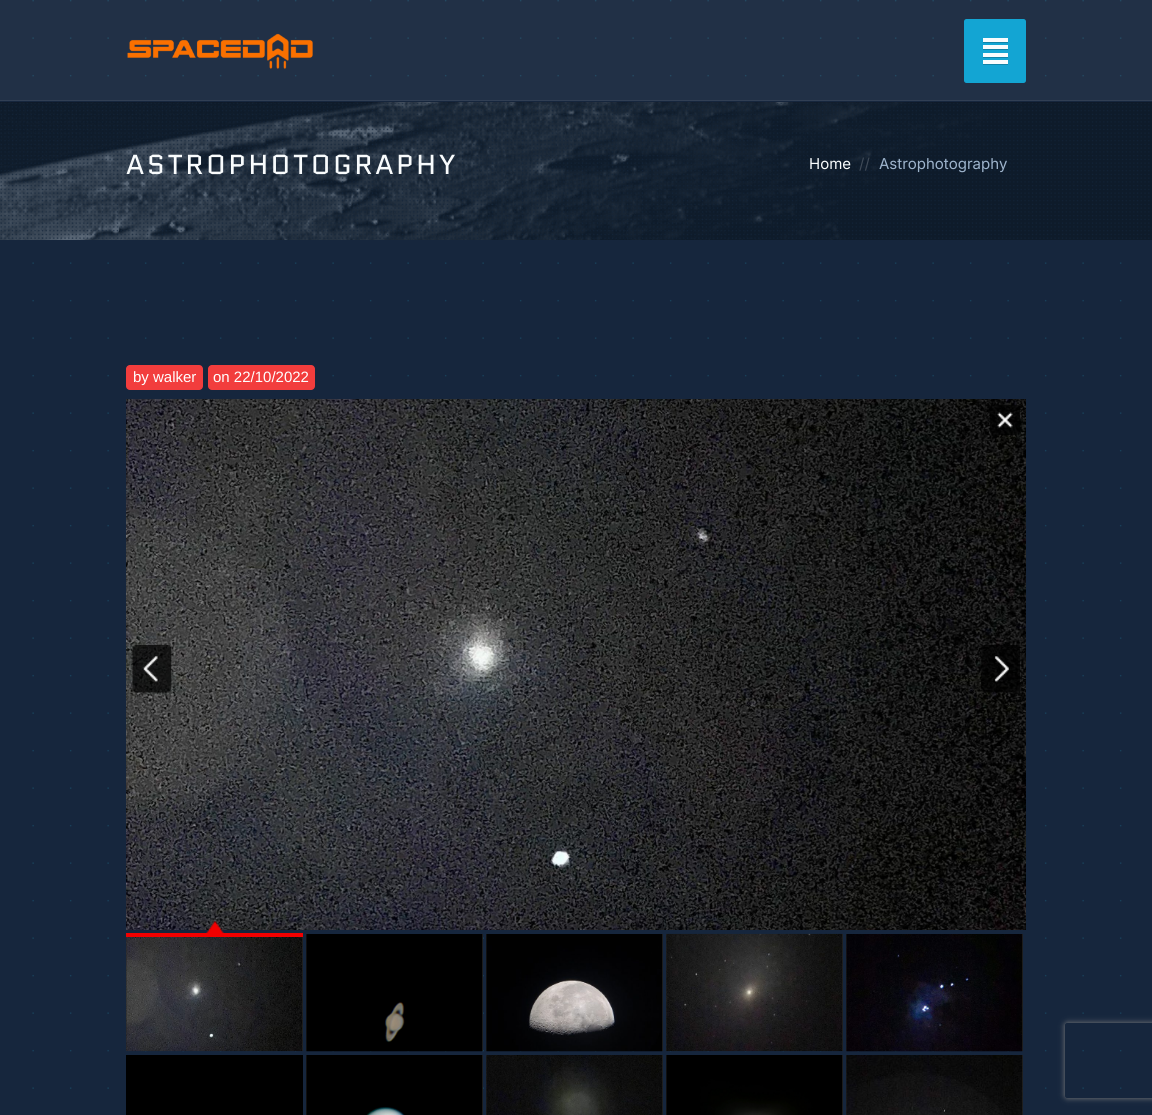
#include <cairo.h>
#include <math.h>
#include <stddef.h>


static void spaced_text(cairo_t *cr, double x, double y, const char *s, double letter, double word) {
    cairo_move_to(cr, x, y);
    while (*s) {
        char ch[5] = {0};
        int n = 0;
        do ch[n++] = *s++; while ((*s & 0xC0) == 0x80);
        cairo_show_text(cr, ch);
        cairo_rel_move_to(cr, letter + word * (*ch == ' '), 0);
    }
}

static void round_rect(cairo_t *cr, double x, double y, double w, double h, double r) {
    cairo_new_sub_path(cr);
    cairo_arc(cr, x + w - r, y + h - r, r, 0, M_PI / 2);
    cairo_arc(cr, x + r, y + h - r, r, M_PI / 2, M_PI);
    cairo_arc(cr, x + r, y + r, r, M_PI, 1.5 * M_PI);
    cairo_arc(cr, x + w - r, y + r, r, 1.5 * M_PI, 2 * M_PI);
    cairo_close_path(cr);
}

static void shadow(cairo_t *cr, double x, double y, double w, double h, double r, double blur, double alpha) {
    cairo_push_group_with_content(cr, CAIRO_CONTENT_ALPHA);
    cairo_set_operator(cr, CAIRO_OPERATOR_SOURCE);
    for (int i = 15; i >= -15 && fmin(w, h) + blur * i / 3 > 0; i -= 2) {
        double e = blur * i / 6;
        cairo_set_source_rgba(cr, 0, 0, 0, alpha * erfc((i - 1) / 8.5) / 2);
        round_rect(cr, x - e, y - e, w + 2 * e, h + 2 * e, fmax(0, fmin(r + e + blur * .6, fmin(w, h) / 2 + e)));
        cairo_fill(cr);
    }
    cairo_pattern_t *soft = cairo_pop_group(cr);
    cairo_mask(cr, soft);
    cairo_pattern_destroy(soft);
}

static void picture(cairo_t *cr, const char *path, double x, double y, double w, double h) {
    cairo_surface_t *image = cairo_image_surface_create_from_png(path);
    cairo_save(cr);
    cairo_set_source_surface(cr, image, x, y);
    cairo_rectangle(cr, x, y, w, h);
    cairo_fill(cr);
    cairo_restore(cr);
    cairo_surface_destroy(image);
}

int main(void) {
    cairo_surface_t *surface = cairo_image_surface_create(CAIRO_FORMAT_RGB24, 1152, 1115);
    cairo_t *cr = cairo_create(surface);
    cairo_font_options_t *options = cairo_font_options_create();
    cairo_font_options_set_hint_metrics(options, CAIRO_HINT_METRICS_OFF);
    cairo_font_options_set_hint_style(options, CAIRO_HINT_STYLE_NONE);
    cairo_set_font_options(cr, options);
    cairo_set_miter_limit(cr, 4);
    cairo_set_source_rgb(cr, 0.086, 0.149, 0.239);
    cairo_paint(cr);
    picture(cr, "img1.png", 32, 0, 1090, 1089);
    cairo_set_source_rgba(cr, 1, 1, 1, 0.05);
    cairo_rectangle(cr, 0, 0, 1152, 100);
    cairo_fill(cr);
    cairo_set_source_rgb(cr, 0.192, 0.247, 0.329);
    cairo_rectangle(cr, 0, 100, 1152, 1);
    cairo_fill(cr);
    picture(cr, "img2.png", 127, 33, 186, 36);
    cairo_set_source_rgb(cr, 0.078, 0.647, 0.827);
    round_rect(cr, 964, 19, 62, 64, 2.5);
    cairo_fill(cr);
    cairo_set_source_rgb(cr, 0.063, 0.518, 0.663);
    cairo_new_path(cr);
    cairo_move_to(cr, 983, 41);
    cairo_line_to(cr, 983, 43);
    cairo_line_to(cr, 1008, 43);
    cairo_line_to(cr, 1008, 39);
    cairo_line_to(cr, 1007.5, 39);
    cairo_line_to(cr, 1007.5, 41);
    cairo_close_path(cr);
    cairo_fill(cr);
    cairo_set_source_rgb(cr, 0.976, 0.988, 0.992);
    cairo_rectangle(cr, 983, 38, 25, 4);
    cairo_fill(cr);
    cairo_set_source_rgb(cr, 0.063, 0.518, 0.663);
    cairo_new_path(cr);
    cairo_move_to(cr, 983, 49);
    cairo_line_to(cr, 983, 50);
    cairo_line_to(cr, 1008, 50);
    cairo_line_to(cr, 1008, 46);
    cairo_line_to(cr, 1007.5, 46);
    cairo_line_to(cr, 1007.5, 49);
    cairo_close_path(cr);
    cairo_fill(cr);
    cairo_set_source_rgb(cr, 0.976, 0.988, 0.992);
    cairo_rectangle(cr, 983, 45, 25, 4);
    cairo_fill(cr);
    cairo_set_source_rgb(cr, 0.063, 0.518, 0.663);
    cairo_new_path(cr);
    cairo_move_to(cr, 983, 56);
    cairo_line_to(cr, 983, 58);
    cairo_line_to(cr, 1008, 58);
    cairo_line_to(cr, 1008, 54);
    cairo_line_to(cr, 1007.5, 54);
    cairo_line_to(cr, 1007.5, 56);
    cairo_close_path(cr);
    cairo_fill(cr);
    cairo_set_source_rgb(cr, 0.976, 0.988, 0.992);
    cairo_rectangle(cr, 983, 53, 25, 4);
    cairo_fill(cr);
    cairo_set_source_rgb(cr, 0.063, 0.518, 0.663);
    cairo_new_path(cr);
    cairo_move_to(cr, 983, 64);
    cairo_line_to(cr, 983, 65);
    cairo_line_to(cr, 1008, 65);
    cairo_line_to(cr, 1008, 61);
    cairo_line_to(cr, 1007.5, 61);
    cairo_line_to(cr, 1007.5, 64);
    cairo_close_path(cr);
    cairo_fill(cr);
    cairo_set_source_rgb(cr, 0.976, 0.988, 0.992);
    cairo_rectangle(cr, 983, 60, 25, 4);
    cairo_fill(cr);
    picture(cr, "img3.png", 0, 102, 1152, 138);
    picture(cr, "img4.png", 0, 102, 1152, 138);
    cairo_select_font_face(cr, "Quantico", CAIRO_FONT_SLANT_NORMAL, CAIRO_FONT_WEIGHT_NORMAL);
    cairo_set_font_size(cr, 27.5);
    spaced_text(cr, 126, 174, "ASTROPHOTOGRAPHY", 2.75, 0);
    cairo_select_font_face(cr, "Inter", CAIRO_FONT_SLANT_NORMAL, CAIRO_FONT_WEIGHT_NORMAL);
    cairo_set_font_size(cr, 15);
    cairo_move_to(cr, 809, 169);
    cairo_show_text(cr, "Home");
    cairo_set_source_rgb(cr, 0.247, 0.29, 0.341);
    cairo_move_to(cr, 859, 169);
    cairo_show_text(cr, "//");
    cairo_set_source_rgb(cr, 0.62, 0.706, 0.8);
    cairo_move_to(cr, 879, 169);
    cairo_show_text(cr, "Astrophotography");
    cairo_set_source_rgb(cr, 0.949, 0.239, 0.239);
    round_rect(cr, 126, 365, 77, 25, 4);
    cairo_fill(cr);
    cairo_select_font_face(cr, "Liberation Sans", CAIRO_FONT_SLANT_NORMAL, CAIRO_FONT_WEIGHT_NORMAL);
    cairo_set_source_rgb(cr, 1, 1, 1);
    cairo_move_to(cr, 133, 382);
    cairo_show_text(cr, "by walker");
    cairo_set_source_rgb(cr, 0.949, 0.239, 0.239);
    round_rect(cr, 208, 365, 107, 25, 4);
    cairo_fill(cr);
    cairo_set_source_rgb(cr, 1, 1, 1);
    cairo_move_to(cr, 213, 382);
    cairo_show_text(cr, "on 22/10/2022");
    picture(cr, "img5.png", 126, 399, 900, 531);
    picture(cr, "img6.png", 990, 405, 30, 30);
    picture(cr, "img7.png", 132, 645, 40, 48);
    picture(cr, "img8.png", 981, 645, 39, 48);
    cairo_set_source_rgb(cr, 0.145, 0.145, 0.145);
    cairo_rectangle(cr, 126, 937, 177, 114);
    cairo_fill(cr);
    cairo_set_source_rgb(cr, 0.949, 0, 0);
    cairo_rectangle(cr, 126, 933, 177, 4);
    cairo_fill(cr);
    picture(cr, "img9.png", 206, 921, 18, 12);
    picture(cr, "img10.png", 126, 937, 177, 115);
    cairo_set_source_rgb(cr, 0.145, 0.145, 0.145);
    cairo_rectangle(cr, 306, 934, 177, 117);
    cairo_fill(cr);
    picture(cr, "img11.png", 306, 934, 177, 118);
    cairo_rectangle(cr, 486, 934, 177, 117);
    cairo_fill(cr);
    picture(cr, "img12.png", 486, 934, 177, 118);
    cairo_rectangle(cr, 666, 934, 177, 117);
    cairo_fill(cr);
    picture(cr, "img13.png", 666, 933, 177, 119);
    cairo_rectangle(cr, 846, 934, 177, 117);
    cairo_fill(cr);
    picture(cr, "img14.png", 846, 934, 177, 118);
    cairo_set_source_rgb(cr, 0, 0, 0);
    cairo_rectangle(cr, 126, 1055, 177, 60);
    cairo_fill(cr);
    cairo_set_source_rgb(cr, 0.145, 0.145, 0.145);
    cairo_rectangle(cr, 306, 1055, 177, 60);
    cairo_fill(cr);
    picture(cr, "img15.png", 306, 1055, 177, 60);
    cairo_rectangle(cr, 486, 1055, 177, 60);
    cairo_fill(cr);
    picture(cr, "img16.png", 486, 1055, 177, 60);
    cairo_rectangle(cr, 666, 1055, 177, 60);
    cairo_fill(cr);
    picture(cr, "img17.png", 666, 1055, 177, 60);
    cairo_rectangle(cr, 846, 1055, 177, 60);
    cairo_fill(cr);
    picture(cr, "img18.png", 846, 1055, 177, 60);
    cairo_save(cr);
    cairo_set_fill_rule(cr, CAIRO_FILL_RULE_EVEN_ODD);
    cairo_new_path(cr);
    cairo_move_to(cr, 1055, 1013);
    cairo_line_to(cr, 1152, 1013);
    cairo_line_to(cr, 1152, 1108);
    cairo_line_to(cr, 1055, 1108);
    cairo_close_path(cr);
    cairo_move_to(cr, 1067.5, 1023);
    cairo_line_to(cr, 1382.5, 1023);
    cairo_curve_to(cr, 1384, 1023, 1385, 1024, 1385, 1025.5);
    cairo_line_to(cr, 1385, 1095.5);
    cairo_curve_to(cr, 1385, 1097, 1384, 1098, 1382.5, 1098);
    cairo_line_to(cr, 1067.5, 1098);
    cairo_curve_to(cr, 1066, 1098, 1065, 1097, 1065, 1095.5);
    cairo_line_to(cr, 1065, 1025.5);
    cairo_curve_to(cr, 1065, 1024, 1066, 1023, 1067.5, 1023);
    cairo_close_path(cr);
    cairo_clip(cr);
    cairo_set_source_rgb(cr, 0.502, 0.502, 0.502);
    shadow(cr, 1065, 1023, 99, 75, 2.5, 3, 1);
    cairo_restore(cr);
    cairo_surface_write_to_png(surface, "page.png");
    cairo_font_options_destroy(options);
    cairo_destroy(cr);
    cairo_surface_destroy(surface);
    return 0;
}
